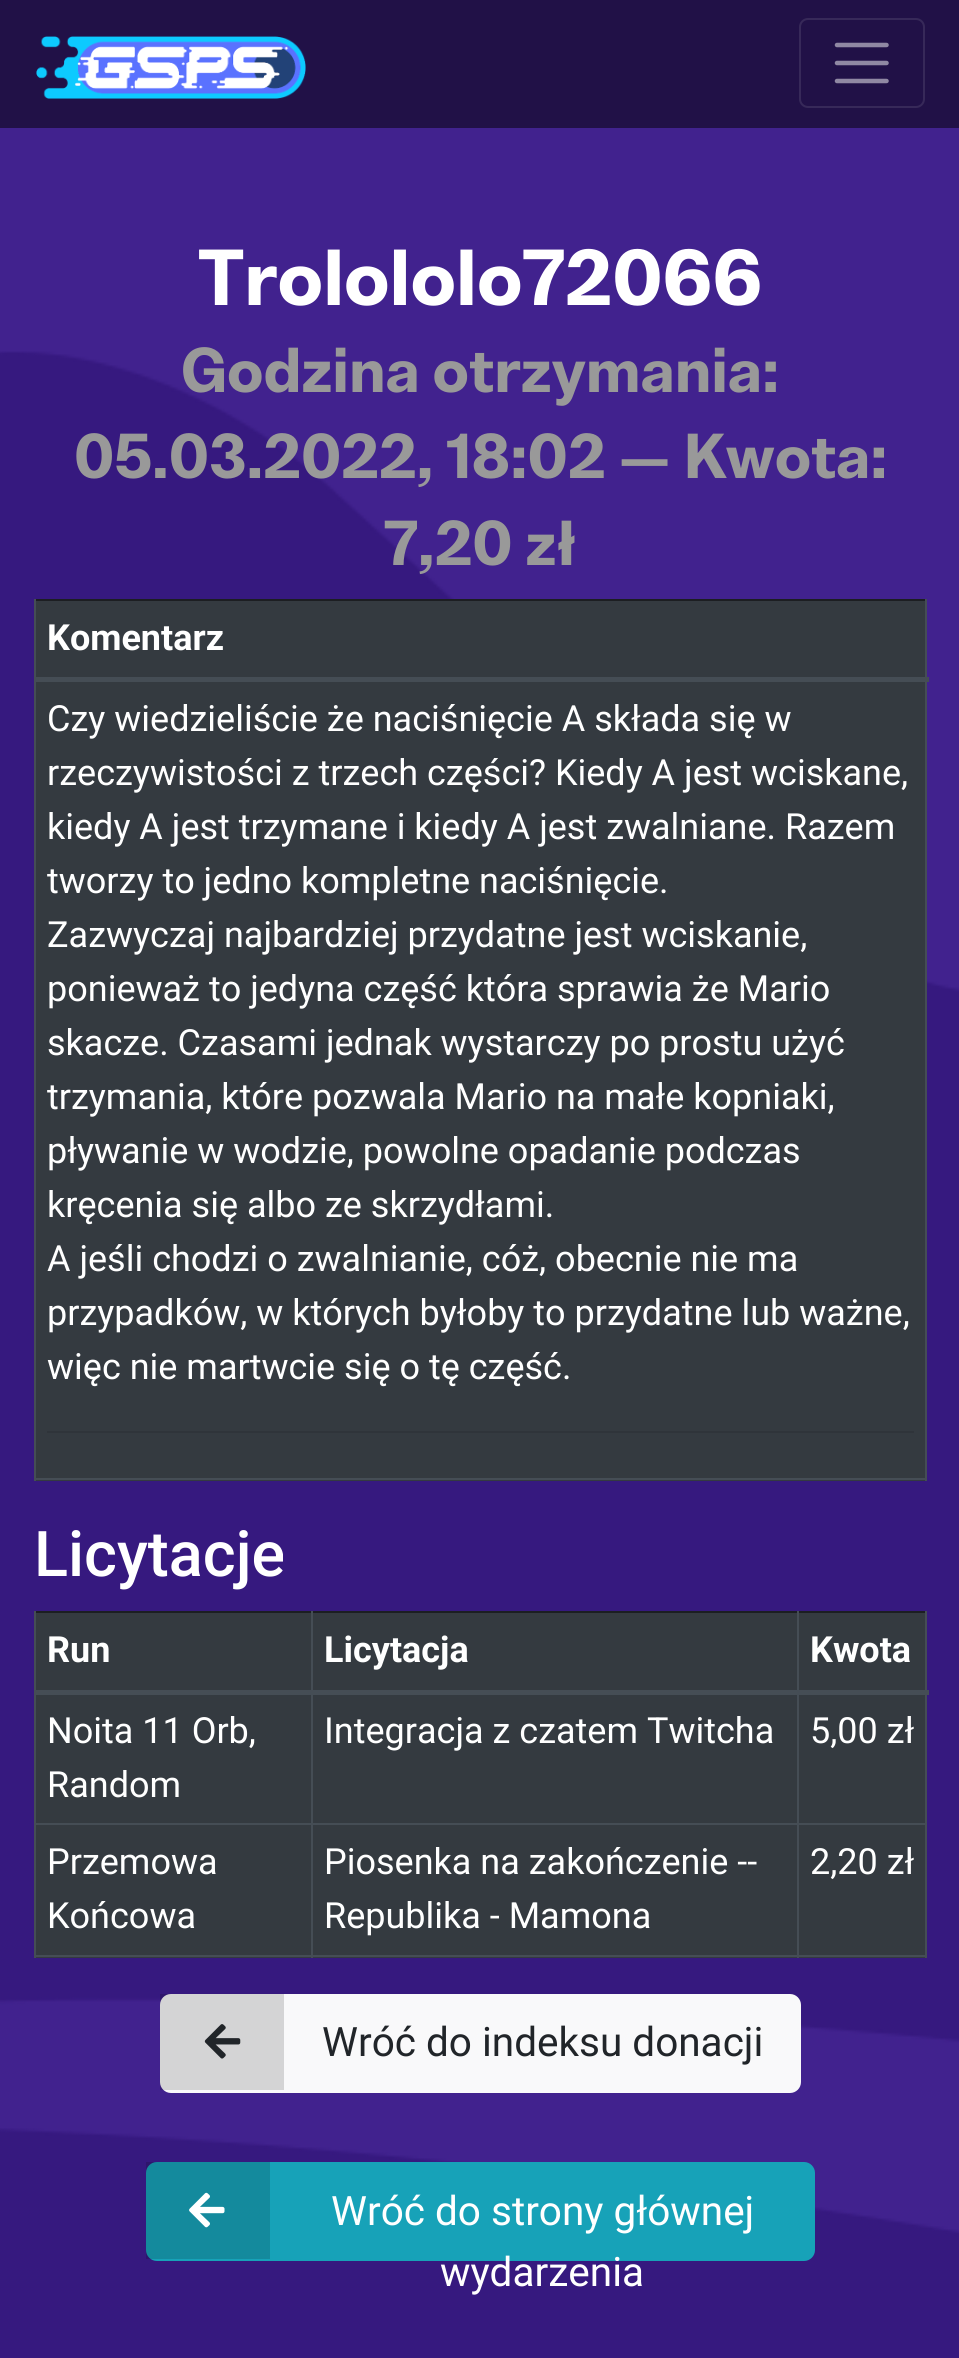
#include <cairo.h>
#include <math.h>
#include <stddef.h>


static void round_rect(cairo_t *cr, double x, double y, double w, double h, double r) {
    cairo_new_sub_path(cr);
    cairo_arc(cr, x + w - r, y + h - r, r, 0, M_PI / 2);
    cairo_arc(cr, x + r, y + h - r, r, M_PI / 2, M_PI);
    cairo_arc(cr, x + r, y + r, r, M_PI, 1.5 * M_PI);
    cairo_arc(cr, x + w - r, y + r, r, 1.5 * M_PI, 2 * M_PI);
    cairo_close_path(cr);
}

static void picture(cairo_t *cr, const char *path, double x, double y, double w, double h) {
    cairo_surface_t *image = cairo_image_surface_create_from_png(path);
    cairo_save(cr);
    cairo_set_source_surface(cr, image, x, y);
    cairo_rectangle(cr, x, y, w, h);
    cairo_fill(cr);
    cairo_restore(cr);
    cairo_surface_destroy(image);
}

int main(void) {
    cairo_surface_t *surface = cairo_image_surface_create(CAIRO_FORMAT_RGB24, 959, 2358);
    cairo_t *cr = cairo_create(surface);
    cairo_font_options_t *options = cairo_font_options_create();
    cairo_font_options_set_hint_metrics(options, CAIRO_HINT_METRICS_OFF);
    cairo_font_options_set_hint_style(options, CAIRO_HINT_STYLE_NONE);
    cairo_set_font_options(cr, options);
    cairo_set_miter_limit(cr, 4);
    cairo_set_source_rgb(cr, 0.255, 0.133, 0.557);
    cairo_paint(cr);
    picture(cr, "img1.png", 0, 351, 959, 2007);
    cairo_set_source_rgb(cr, 0.129, 0.067, 0.278);
    cairo_rectangle(cr, 0, 0, 959, 128);
    cairo_fill(cr);
    picture(cr, "img2.png", 36, 36, 270, 63);
    round_rect(cr, 800, 19, 124, 88, 8);
    cairo_set_source_rgb(cr, 0.216, 0.161, 0.349);
    cairo_stroke(cr);
    cairo_new_path(cr);
    cairo_move_to(cr, 837, 45);
    cairo_line_to(cr, 886.5, 45);
    cairo_move_to(cr, 837, 63);
    cairo_line_to(cr, 886.5, 63);
    cairo_move_to(cr, 837, 81);
    cairo_line_to(cr, 886.5, 81);
    cairo_set_source_rgb(cr, 0.565, 0.533, 0.639);
    cairo_set_line_width(cr, 4.5);
    cairo_set_line_cap(cr, CAIRO_LINE_CAP_ROUND);
    cairo_stroke(cr);
    cairo_select_font_face(cr, "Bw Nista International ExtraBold", CAIRO_FONT_SLANT_NORMAL, CAIRO_FONT_WEIGHT_NORMAL);
    cairo_set_font_size(cr, 72);
    cairo_set_source_rgb(cr, 1, 1, 1);
    cairo_move_to(cr, 198, 305);
    cairo_show_text(cr, "Trolololo72066");
    cairo_set_font_size(cr, 57.6);
    cairo_set_source_rgb(cr, 0.6, 0.6, 0.6);
    cairo_move_to(cr, 181, 392);
    cairo_show_text(cr, "Godzina otrzymania:");
    cairo_move_to(cr, 74, 478);
    cairo_show_text(cr, "05.03.2022, 18:02 — Kwota:");
    cairo_move_to(cr, 384, 565);
    cairo_show_text(cr, "7,20 zł");
    cairo_set_source_rgb(cr, 0.204, 0.227, 0.251);
    cairo_rectangle(cr, 36, 601, 889, 880);
    cairo_fill(cr);
    cairo_set_source_rgb(cr, 0.11, 0.118, 0.133);
    cairo_rectangle(cr, 34, 599, 893, 2);
    cairo_fill(cr);
    cairo_set_source_rgb(cr, 0.271, 0.302, 0.333);
    cairo_rectangle(cr, 925, 677, 2, 804);
    cairo_fill(cr);
    cairo_rectangle(cr, 925, 599, 2, 81);
    cairo_fill(cr);
    cairo_rectangle(cr, 34, 1478, 893, 2);
    cairo_fill(cr);
    cairo_rectangle(cr, 34, 677, 2, 804);
    cairo_fill(cr);
    cairo_rectangle(cr, 34, 599, 2, 81);
    cairo_fill(cr);
    cairo_rectangle(cr, 34, 677, 895, 5);
    cairo_fill(cr);
    cairo_select_font_face(cr, "Roboto", CAIRO_FONT_SLANT_NORMAL, CAIRO_FONT_WEIGHT_BOLD);
    cairo_set_font_size(cr, 36);
    cairo_set_source_rgb(cr, 1, 1, 1);
    cairo_move_to(cr, 47, 650);
    cairo_show_text(cr, "Komentarz");
    cairo_select_font_face(cr, "Roboto", CAIRO_FONT_SLANT_NORMAL, CAIRO_FONT_WEIGHT_NORMAL);
    cairo_move_to(cr, 47, 731);
    cairo_show_text(cr, "Czy wiedzieliście że naciśnięcie A składa się w");
    cairo_move_to(cr, 47, 785);
    cairo_show_text(cr, "rzeczywistości z trzech części? Kiedy A jest wciskane,");
    cairo_move_to(cr, 47, 839);
    cairo_show_text(cr, "kiedy A jest trzymane i kiedy A jest zwalniane. Razem");
    cairo_move_to(cr, 47, 893);
    cairo_show_text(cr, "tworzy to jedno kompletne naciśnięcie.");
    cairo_move_to(cr, 47, 947);
    cairo_show_text(cr, "Zazwyczaj najbardziej przydatne jest wciskanie,");
    cairo_move_to(cr, 47, 1001);
    cairo_show_text(cr, "ponieważ to jedyna część która sprawia że Mario");
    cairo_move_to(cr, 47, 1055);
    cairo_show_text(cr, "skacze. Czasami jednak wystarczy po prostu użyć");
    cairo_move_to(cr, 47, 1109);
    cairo_show_text(cr, "trzymania, które pozwala Mario na małe kopniaki,");
    cairo_move_to(cr, 47, 1163);
    cairo_show_text(cr, "pływanie w wodzie, powolne opadanie podczas");
    cairo_move_to(cr, 47, 1217);
    cairo_show_text(cr, "kręcenia się albo ze skrzydłami.");
    cairo_move_to(cr, 47, 1271);
    cairo_show_text(cr, "A jeśli chodzi o zwalnianie, cóż, obecnie nie ma");
    cairo_move_to(cr, 47, 1325);
    cairo_show_text(cr, "przypadków, w których byłoby to przydatne lub ważne,");
    cairo_move_to(cr, 47, 1379);
    cairo_show_text(cr, "więc nie martwcie się o tę część.");
    cairo_set_source_rgb(cr, 0.184, 0.204, 0.227);
    cairo_rectangle(cr, 47, 1431, 867, 2);
    cairo_fill(cr);
    cairo_select_font_face(cr, "Roboto Medium", CAIRO_FONT_SLANT_NORMAL, CAIRO_FONT_WEIGHT_NORMAL);
    cairo_set_font_size(cr, 63);
    cairo_set_source_rgb(cr, 1, 1, 1);
    cairo_move_to(cr, 34, 1576);
    cairo_show_text(cr, "Licytacje");
    cairo_set_source_rgb(cr, 0.204, 0.227, 0.251);
    cairo_rectangle(cr, 36, 1613, 889, 345);
    cairo_fill(cr);
    cairo_set_source_rgb(cr, 0.11, 0.118, 0.133);
    cairo_rectangle(cr, 34, 1611, 893, 2);
    cairo_fill(cr);
    cairo_set_source_rgb(cr, 0.271, 0.302, 0.333);
    cairo_rectangle(cr, 925, 1690, 2, 268);
    cairo_fill(cr);
    cairo_rectangle(cr, 797, 1955, 130, 2);
    cairo_fill(cr);
    cairo_rectangle(cr, 797, 1823, 2, 135);
    cairo_fill(cr);
    cairo_rectangle(cr, 797, 1823, 130, 2);
    cairo_fill(cr);
    cairo_rectangle(cr, 797, 1690, 2, 135);
    cairo_fill(cr);
    cairo_rectangle(cr, 311, 1955, 488, 2);
    cairo_fill(cr);
    cairo_rectangle(cr, 311, 1823, 2, 135);
    cairo_fill(cr);
    cairo_rectangle(cr, 311, 1823, 488, 2);
    cairo_fill(cr);
    cairo_rectangle(cr, 311, 1690, 2, 135);
    cairo_fill(cr);
    cairo_rectangle(cr, 311, 1611, 2, 81);
    cairo_fill(cr);
    cairo_rectangle(cr, 34, 1955, 279, 2);
    cairo_fill(cr);
    cairo_rectangle(cr, 34, 1823, 2, 135);
    cairo_fill(cr);
    cairo_rectangle(cr, 34, 1823, 279, 2);
    cairo_fill(cr);
    cairo_rectangle(cr, 34, 1690, 2, 135);
    cairo_fill(cr);
    cairo_rectangle(cr, 34, 1611, 2, 81);
    cairo_fill(cr);
    cairo_select_font_face(cr, "Roboto", CAIRO_FONT_SLANT_NORMAL, CAIRO_FONT_WEIGHT_BOLD);
    cairo_set_font_size(cr, 36);
    cairo_set_source_rgb(cr, 1, 1, 1);
    cairo_move_to(cr, 47, 1662);
    cairo_show_text(cr, "Run");
    cairo_set_source_rgb(cr, 0.271, 0.302, 0.333);
    cairo_rectangle(cr, 797, 1611, 2, 81);
    cairo_fill(cr);
    cairo_set_source_rgb(cr, 1, 1, 1);
    cairo_move_to(cr, 324, 1662);
    cairo_show_text(cr, "Licytacja");
    cairo_set_source_rgb(cr, 0.271, 0.302, 0.333);
    cairo_rectangle(cr, 925, 1611, 2, 81);
    cairo_fill(cr);
    cairo_rectangle(cr, 34, 1690, 895, 5);
    cairo_fill(cr);
    cairo_set_source_rgb(cr, 1, 1, 1);
    cairo_move_to(cr, 810, 1662);
    cairo_show_text(cr, "Kwota");
    cairo_select_font_face(cr, "Roboto", CAIRO_FONT_SLANT_NORMAL, CAIRO_FONT_WEIGHT_NORMAL);
    cairo_move_to(cr, 47, 1743);
    cairo_show_text(cr, "Noita 11 Orb,");
    cairo_move_to(cr, 47, 1797);
    cairo_show_text(cr, "Random");
    cairo_move_to(cr, 324, 1743);
    cairo_show_text(cr, "Integracja z czatem Twitcha");
    cairo_move_to(cr, 810, 1743);
    cairo_show_text(cr, "5,00 zł");
    cairo_move_to(cr, 47, 1874);
    cairo_show_text(cr, "Przemowa");
    cairo_move_to(cr, 47, 1928);
    cairo_show_text(cr, "Końcowa");
    cairo_move_to(cr, 324, 1874);
    cairo_show_text(cr, "Piosenka na zakończenie --");
    cairo_move_to(cr, 324, 1928);
    cairo_show_text(cr, "Republika - Mamona");
    cairo_move_to(cr, 810, 1874);
    cairo_show_text(cr, "2,20 zł");
    cairo_set_source_rgb(cr, 0.973, 0.976, 0.98);
    round_rect(cr, 161, 1995, 639, 97, 10);
    cairo_fill_preserve(cr);
    cairo_set_line_width(cr, 2);
    cairo_set_line_cap(cr, CAIRO_LINE_CAP_BUTT);
    cairo_stroke(cr);
    cairo_set_source_rgba(cr, 0, 0, 0, 0.15);
    cairo_rectangle(cr, 160, 1994, 124, 96);
    cairo_fill(cr);
    picture(cr, "img3.png", 204, 2024, 37, 35);
    cairo_set_font_size(cr, 40.5);
    cairo_set_source_rgb(cr, 0.129, 0.145, 0.161);
    cairo_move_to(cr, 322, 2056);
    cairo_show_text(cr, "Wróć do indeksu donacji");
    cairo_set_source_rgb(cr, 0.09, 0.635, 0.722);
    round_rect(cr, 147, 2163, 667, 97, 10);
    cairo_fill_preserve(cr);
    cairo_stroke(cr);
    cairo_set_source_rgba(cr, 0, 0, 0, 0.15);
    cairo_rectangle(cr, 146, 2162, 124, 97);
    cairo_fill(cr);
    picture(cr, "img4.png", 189, 2192, 36, 36);
    cairo_set_source_rgb(cr, 1, 1, 1);
    cairo_move_to(cr, 331, 2225);
    cairo_show_text(cr, "Wróć do strony głównej");
    cairo_move_to(cr, 440, 2286);
    cairo_show_text(cr, "wydarzenia");
    cairo_surface_write_to_png(surface, "page.png");
    cairo_font_options_destroy(options);
    cairo_destroy(cr);
    cairo_surface_destroy(surface);
    return 0;
}
